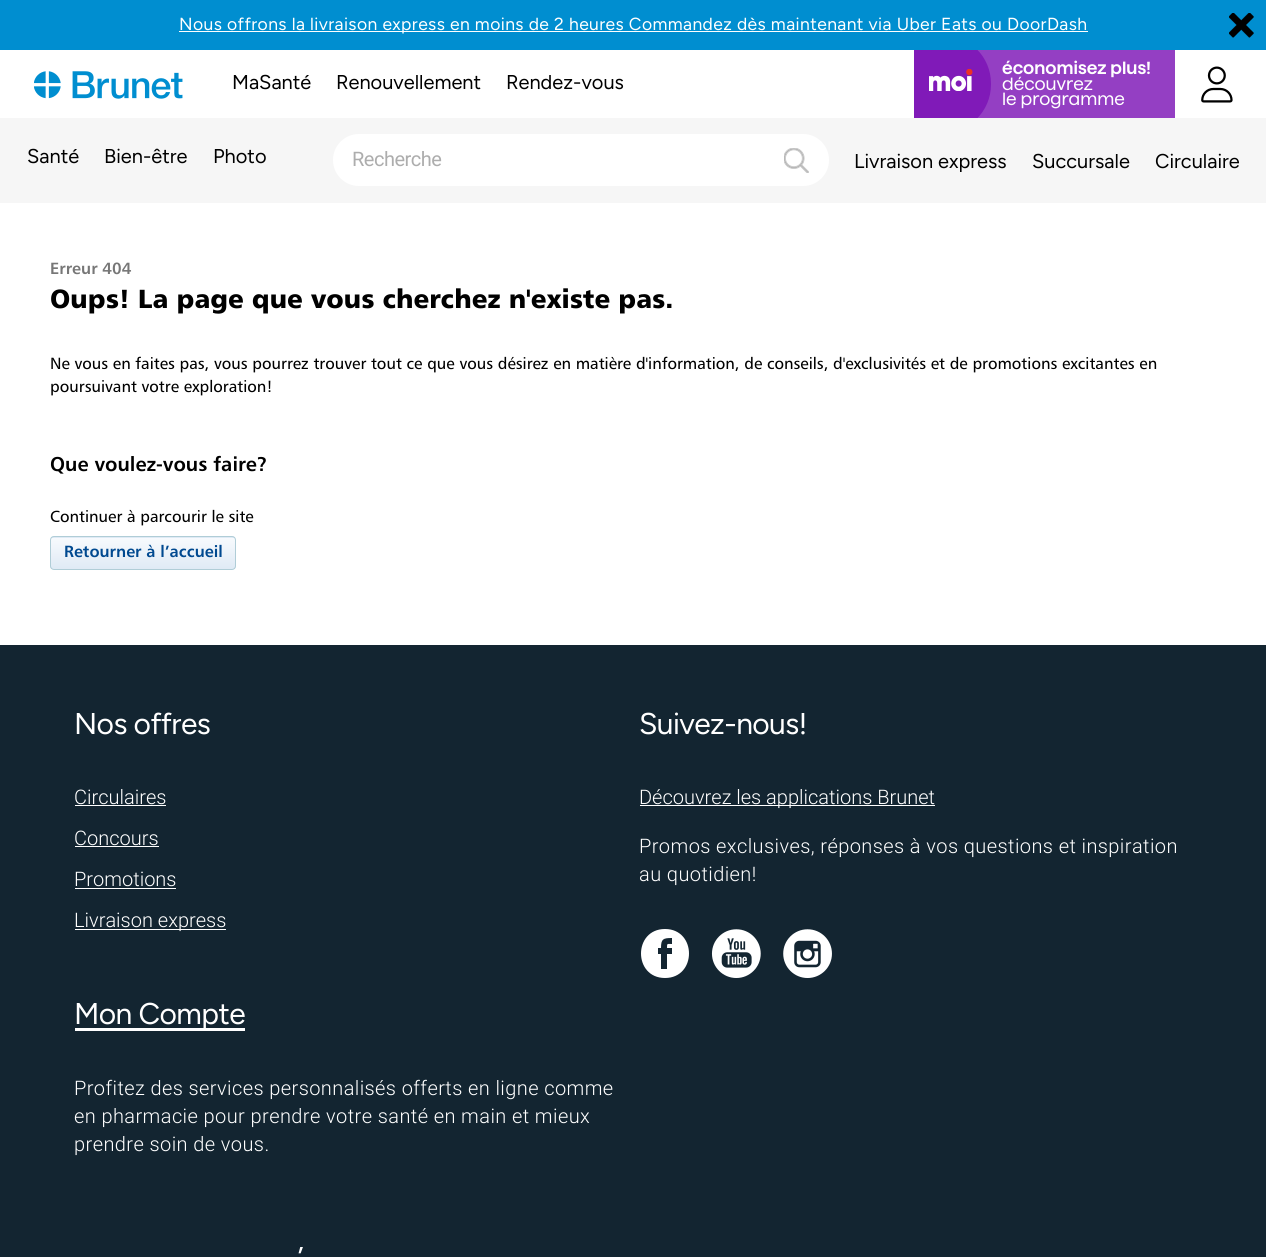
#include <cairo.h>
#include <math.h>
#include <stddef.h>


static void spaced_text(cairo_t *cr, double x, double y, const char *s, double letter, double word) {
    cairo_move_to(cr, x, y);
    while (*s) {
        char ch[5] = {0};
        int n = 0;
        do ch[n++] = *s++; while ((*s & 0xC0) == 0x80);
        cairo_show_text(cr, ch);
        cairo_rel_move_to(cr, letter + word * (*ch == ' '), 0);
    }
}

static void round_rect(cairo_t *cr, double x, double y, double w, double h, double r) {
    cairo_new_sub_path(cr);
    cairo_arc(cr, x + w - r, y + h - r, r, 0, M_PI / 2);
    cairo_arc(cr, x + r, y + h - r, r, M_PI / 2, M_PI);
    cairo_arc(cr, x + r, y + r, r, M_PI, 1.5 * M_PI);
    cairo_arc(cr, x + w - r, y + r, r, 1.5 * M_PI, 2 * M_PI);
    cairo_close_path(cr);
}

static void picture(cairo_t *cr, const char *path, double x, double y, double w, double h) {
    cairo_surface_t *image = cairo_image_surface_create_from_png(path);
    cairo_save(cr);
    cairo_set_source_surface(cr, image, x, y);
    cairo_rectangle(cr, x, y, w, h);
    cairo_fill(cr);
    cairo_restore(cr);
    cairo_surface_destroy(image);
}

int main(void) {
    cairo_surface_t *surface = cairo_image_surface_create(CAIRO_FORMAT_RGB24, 1266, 1257);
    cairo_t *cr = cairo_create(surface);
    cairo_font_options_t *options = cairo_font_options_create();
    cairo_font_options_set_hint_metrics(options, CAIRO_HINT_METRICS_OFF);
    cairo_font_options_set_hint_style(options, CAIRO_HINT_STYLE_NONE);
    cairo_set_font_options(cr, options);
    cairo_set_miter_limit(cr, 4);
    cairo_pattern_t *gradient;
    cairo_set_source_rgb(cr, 1, 1, 1);
    cairo_paint(cr);
    cairo_set_source_rgb(cr, 0, 0.557, 0.816);
    cairo_rectangle(cr, 0, 0, 1266, 50);
    cairo_fill(cr);
    cairo_set_source_rgb(cr, 1, 1, 1);
    cairo_rectangle(cr, 179, 31, 909, 1);
    cairo_fill(cr);
    cairo_select_font_face(cr, "Figtree", CAIRO_FONT_SLANT_NORMAL, CAIRO_FONT_WEIGHT_NORMAL);
    cairo_set_font_size(cr, 17.5);
    spaced_text(cr, 179, 30, "Nous offrons la livraison express en moins de 2 heures Commandez dès maintenant via Uber Eats ou DoorDash", 0.41, 0);
    picture(cr, "img1.png", 1229, 13, 25, 25);
    picture(cr, "img2.png", 34, 71, 149, 28);
    cairo_set_font_size(cr, 20);
    cairo_set_source_rgb(cr, 0, 0, 0);
    cairo_move_to(cr, 232, 89);
    cairo_show_text(cr, "MaSanté");
    cairo_move_to(cr, 336, 89);
    cairo_show_text(cr, "Renouvellement");
    cairo_move_to(cr, 506, 89);
    cairo_show_text(cr, "Rendez-vous");
    cairo_set_source_rgb(cr, 0.58, 0.247, 0.765);
    cairo_rectangle(cr, 977, 50, 198, 68);
    cairo_fill(cr);
    cairo_save(cr);
    cairo_rectangle(cr, 914, 50, 261, 68);
    cairo_clip(cr);
    cairo_set_source_rgb(cr, 0.502, 0.102, 0.722);
    round_rect(cr, 894, 35, 97, 98, 48.5);
    cairo_fill(cr);
    cairo_restore(cr);
    picture(cr, "img3.png", 929, 69, 44, 22);
    cairo_select_font_face(cr, "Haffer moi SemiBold", CAIRO_FONT_SLANT_NORMAL, CAIRO_FONT_WEIGHT_NORMAL);
    cairo_set_font_size(cr, 17.5);
    cairo_set_source_rgb(cr, 1, 1, 1);
    cairo_move_to(cr, 1002, 74);
    cairo_show_text(cr, "économisez plus!");
    cairo_select_font_face(cr, "Haffer moi", CAIRO_FONT_SLANT_NORMAL, CAIRO_FONT_WEIGHT_NORMAL);
    cairo_move_to(cr, 1002, 90);
    cairo_show_text(cr, "découvrez");
    cairo_move_to(cr, 1002, 105);
    cairo_show_text(cr, "le programme");
    picture(cr, "img4.png", 1201, 66, 32, 37);
    cairo_set_source_rgb(cr, 0.961, 0.961, 0.961);
    cairo_rectangle(cr, 0, 118, 1266, 85);
    cairo_fill(cr);
    cairo_select_font_face(cr, "Figtree", CAIRO_FONT_SLANT_NORMAL, CAIRO_FONT_WEIGHT_NORMAL);
    cairo_set_font_size(cr, 20);
    cairo_set_source_rgb(cr, 0, 0, 0);
    cairo_move_to(cr, 27, 163);
    cairo_show_text(cr, "Santé");
    cairo_move_to(cr, 104, 163);
    cairo_show_text(cr, "Bien-être");
    cairo_move_to(cr, 213, 163);
    cairo_show_text(cr, "Photo");
    cairo_set_source_rgb(cr, 1, 1, 1);
    round_rect(cr, 333, 134, 496, 52, 26);
    cairo_fill(cr);
    cairo_select_font_face(cr, "Roboto", CAIRO_FONT_SLANT_NORMAL, CAIRO_FONT_WEIGHT_NORMAL);
    cairo_set_source_rgb(cr, 0.678, 0.678, 0.678);
    spaced_text(cr, 352, 166, "Recherche", -0.5, 0);
    picture(cr, "img5.png", 784, 148, 25, 25);
    cairo_select_font_face(cr, "Figtree", CAIRO_FONT_SLANT_NORMAL, CAIRO_FONT_WEIGHT_NORMAL);
    cairo_set_source_rgb(cr, 0, 0, 0);
    cairo_move_to(cr, 854, 168);
    cairo_show_text(cr, "Livraison express");
    cairo_move_to(cr, 1032, 168);
    cairo_show_text(cr, "Succursale");
    cairo_move_to(cr, 1155, 168);
    cairo_show_text(cr, "Circulaire");
    cairo_select_font_face(cr, "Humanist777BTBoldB", CAIRO_FONT_SLANT_NORMAL, CAIRO_FONT_WEIGHT_BOLD);
    cairo_set_font_size(cr, 16.25);
    cairo_set_source_rgb(cr, 0.467, 0.467, 0.467);
    cairo_move_to(cr, 50, 274);
    cairo_show_text(cr, "Erreur 404");
    cairo_select_font_face(cr, "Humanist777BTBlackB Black", CAIRO_FONT_SLANT_NORMAL, CAIRO_FONT_WEIGHT_NORMAL);
    cairo_set_font_size(cr, 26.25);
    cairo_set_source_rgb(cr, 0, 0, 0);
    cairo_move_to(cr, 50, 308);
    cairo_show_text(cr, "Oups! La page que vous cherchez n'existe pas.");
    cairo_select_font_face(cr, "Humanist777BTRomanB", CAIRO_FONT_SLANT_NORMAL, CAIRO_FONT_WEIGHT_NORMAL);
    cairo_set_font_size(cr, 16.25);
    cairo_move_to(cr, 50, 369);
    cairo_show_text(cr, "Ne vous en faites pas, vous pourrez trouver tout ce que vous désirez en matière d'information, de conseils, d'exclusivités et de promotions excitantes en");
    cairo_move_to(cr, 50, 392);
    cairo_show_text(cr, "poursuivant votre exploration!");
    cairo_select_font_face(cr, "Humanist777BTBoldB", CAIRO_FONT_SLANT_NORMAL, CAIRO_FONT_WEIGHT_BOLD);
    cairo_set_font_size(cr, 20);
    cairo_move_to(cr, 50, 471);
    cairo_show_text(cr, "Que voulez-vous faire?");
    cairo_select_font_face(cr, "Humanist777BTRomanB", CAIRO_FONT_SLANT_NORMAL, CAIRO_FONT_WEIGHT_NORMAL);
    cairo_set_font_size(cr, 16.25);
    cairo_move_to(cr, 50, 522);
    cairo_show_text(cr, "Continuer à parcourir le site");
    cairo_save(cr);
    round_rect(cr, 50, 536, 186, 34, 4);
    cairo_clip(cr);
    gradient = cairo_pattern_create_linear(143, 506, 143, 538);
    cairo_pattern_add_color_stop_rgba(gradient, 0, 0.969, 0.98, 0.992, 1);
    cairo_pattern_add_color_stop_rgba(gradient, 1, 0.875, 0.918, 0.961, 1);
    cairo_set_source(cr, gradient);
    cairo_pattern_destroy(gradient);
    cairo_rectangle(cr, 50, 536, 186, 2);
    cairo_fill(cr);
    gradient = cairo_pattern_create_linear(143, 538, 143, 569);
    cairo_pattern_add_color_stop_rgba(gradient, 0, 0.969, 0.98, 0.992, 1);
    cairo_pattern_add_color_stop_rgba(gradient, 1, 0.875, 0.918, 0.961, 1);
    cairo_set_source(cr, gradient);
    cairo_pattern_destroy(gradient);
    cairo_rectangle(cr, 50, 538, 186, 31);
    cairo_fill(cr);
    cairo_restore(cr);
    round_rect(cr, 50.5, 536.5, 185, 33, 3.5);
    cairo_set_source_rgb(cr, 0.69, 0.804, 0.843);
    cairo_set_line_width(cr, 1);
    cairo_stroke(cr);
    cairo_select_font_face(cr, "Humanist777BTBoldB", CAIRO_FONT_SLANT_NORMAL, CAIRO_FONT_WEIGHT_BOLD);
    cairo_set_source_rgb(cr, 0, 0.286, 0.565);
    cairo_move_to(cr, 64, 557);
    cairo_show_text(cr, "Retourner à l’accueil");
    cairo_set_source_rgb(cr, 0.075, 0.145, 0.192);
    cairo_rectangle(cr, 0, 645, 1266, 612);
    cairo_fill(cr);
    cairo_select_font_face(cr, "Figtree", CAIRO_FONT_SLANT_NORMAL, CAIRO_FONT_WEIGHT_NORMAL);
    cairo_set_font_size(cr, 30);
    cairo_set_source_rgb(cr, 1, 1, 1);
    spaced_text(cr, 74, 734, "Nos offres", -0.6, 0);
    cairo_select_font_face(cr, "Roboto Light", CAIRO_FONT_SLANT_NORMAL, CAIRO_FONT_WEIGHT_NORMAL);
    cairo_set_font_size(cr, 20);
    cairo_move_to(cr, 74, 804);
    cairo_show_text(cr, "Circulaires");
    cairo_rectangle(cr, 75, 805, 91, 1);
    cairo_fill(cr);
    cairo_move_to(cr, 74, 845);
    cairo_show_text(cr, "Concours");
    cairo_rectangle(cr, 75, 846, 84, 1);
    cairo_fill(cr);
    cairo_move_to(cr, 74, 886);
    cairo_show_text(cr, "Promotions");
    cairo_rectangle(cr, 75, 888, 101, 1);
    cairo_fill(cr);
    cairo_rectangle(cr, 75, 929, 151, 1);
    cairo_fill(cr);
    cairo_move_to(cr, 74, 927);
    cairo_show_text(cr, "Livraison express");
    cairo_rectangle(cr, 75, 1028, 170, 3);
    cairo_fill(cr);
    cairo_select_font_face(cr, "Figtree", CAIRO_FONT_SLANT_NORMAL, CAIRO_FONT_WEIGHT_NORMAL);
    cairo_set_font_size(cr, 30);
    spaced_text(cr, 74, 1024, "Mon Compte", -0.6, 0);
    cairo_select_font_face(cr, "Roboto Light", CAIRO_FONT_SLANT_NORMAL, CAIRO_FONT_WEIGHT_NORMAL);
    cairo_set_font_size(cr, 20);
    spaced_text(cr, 74, 1095, "Profitez des services personnalisés offerts en ligne comme", 0.41, 0);
    spaced_text(cr, 74, 1123, "en pharmacie pour prendre votre santé en main et mieux", 0.41, 0);
    spaced_text(cr, 74, 1151, "prendre soin de vous.", 0.41, 0);
    cairo_select_font_face(cr, "Figtree", CAIRO_FONT_SLANT_NORMAL, CAIRO_FONT_WEIGHT_NORMAL);
    cairo_set_font_size(cr, 30);
    spaced_text(cr, 639, 734, "Suivez-nous!", -0.6, 0);
    cairo_rectangle(cr, 640, 805, 295, 1);
    cairo_fill(cr);
    cairo_select_font_face(cr, "Roboto Light", CAIRO_FONT_SLANT_NORMAL, CAIRO_FONT_WEIGHT_NORMAL);
    cairo_set_font_size(cr, 20);
    cairo_move_to(cr, 639, 804);
    cairo_show_text(cr, "Découvrez les applications Brunet");
    spaced_text(cr, 639, 853, "Promos exclusives, réponses à vos questions et inspiration", 0.41, 0);
    spaced_text(cr, 639, 881, "au quotidien!", 0.41, 0);
    cairo_new_path(cr);
    cairo_move_to(cr, 665, 929);
    cairo_curve_to(cr, 633, 929, 633, 978, 665, 978);
    cairo_curve_to(cr, 697, 978, 697, 929, 665, 929);
    cairo_close_path(cr);
    cairo_move_to(cr, 672, 954);
    cairo_line_to(cr, 667, 954);
    cairo_line_to(cr, 667, 969);
    cairo_line_to(cr, 661, 969);
    cairo_line_to(cr, 661, 954);
    cairo_line_to(cr, 658, 954);
    cairo_line_to(cr, 658, 948);
    cairo_line_to(cr, 661, 948);
    cairo_curve_to(cr, 661, 939, 663, 938, 672, 938);
    cairo_line_to(cr, 672, 944);
    cairo_curve_to(cr, 667, 944, 667, 943, 667, 948);
    cairo_line_to(cr, 672, 948);
    cairo_close_path(cr);
    cairo_fill(cr);
    picture(cr, "img6.png", 711, 929, 50, 49);
    picture(cr, "img7.png", 783, 929, 49, 49);
    cairo_select_font_face(cr, "Figtree", CAIRO_FONT_SLANT_NORMAL, CAIRO_FONT_WEIGHT_NORMAL);
    cairo_set_font_size(cr, 30);
    spaced_text(cr, 298, 1268, "’", -0.6, 0);
    cairo_surface_write_to_png(surface, "page.png");
    cairo_font_options_destroy(options);
    cairo_destroy(cr);
    cairo_surface_destroy(surface);
    return 0;
}
